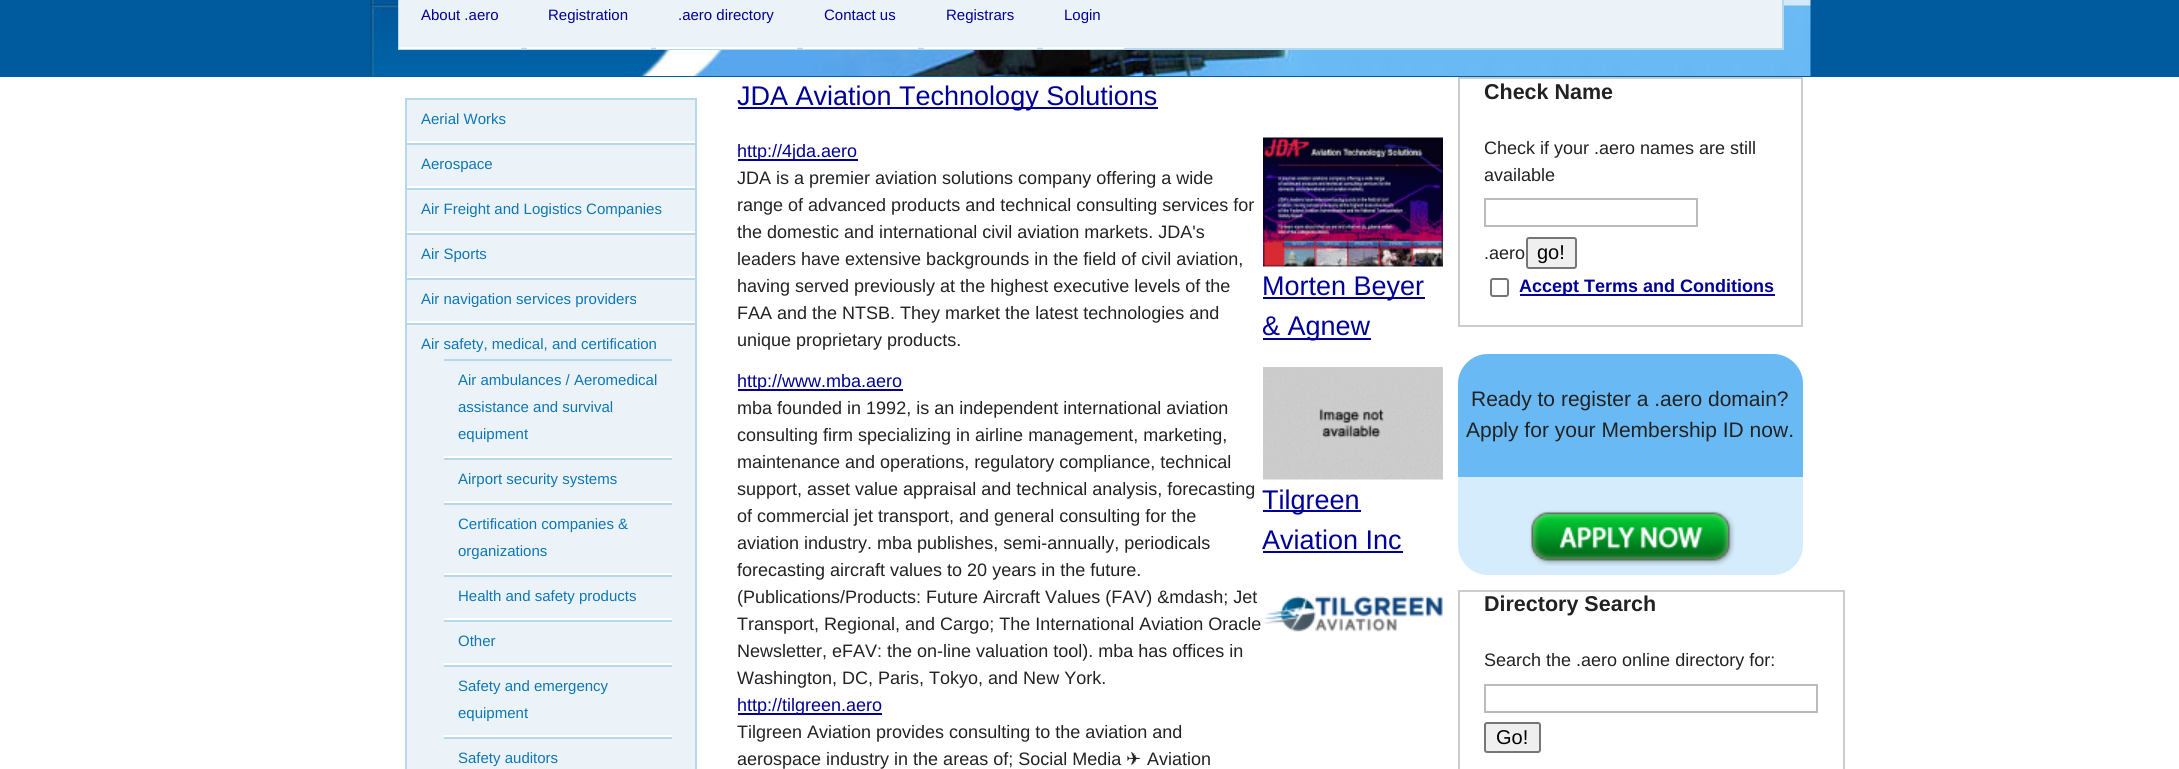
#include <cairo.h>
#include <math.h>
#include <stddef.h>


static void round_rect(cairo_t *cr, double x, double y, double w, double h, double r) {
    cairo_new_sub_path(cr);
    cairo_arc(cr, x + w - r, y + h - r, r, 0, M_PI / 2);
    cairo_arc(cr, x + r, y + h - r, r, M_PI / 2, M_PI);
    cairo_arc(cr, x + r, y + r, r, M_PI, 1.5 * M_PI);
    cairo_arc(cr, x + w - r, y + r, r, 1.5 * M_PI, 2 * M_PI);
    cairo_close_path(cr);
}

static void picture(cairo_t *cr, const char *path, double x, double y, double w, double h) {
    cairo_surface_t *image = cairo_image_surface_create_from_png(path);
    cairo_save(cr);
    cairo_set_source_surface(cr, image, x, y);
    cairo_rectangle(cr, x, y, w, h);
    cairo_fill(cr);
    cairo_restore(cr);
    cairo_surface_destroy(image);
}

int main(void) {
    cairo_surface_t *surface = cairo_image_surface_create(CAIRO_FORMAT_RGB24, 2179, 769);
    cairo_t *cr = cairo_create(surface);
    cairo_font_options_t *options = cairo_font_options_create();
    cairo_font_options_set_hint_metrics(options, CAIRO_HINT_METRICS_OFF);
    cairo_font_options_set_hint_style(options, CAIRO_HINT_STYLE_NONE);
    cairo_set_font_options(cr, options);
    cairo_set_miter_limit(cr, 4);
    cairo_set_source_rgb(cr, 1, 1, 1);
    cairo_paint(cr);
    cairo_set_source_rgb(cr, 0, 0.357, 0.62);
    cairo_rectangle(cr, 0, 0, 2179, 77);
    cairo_fill(cr);
    picture(cr, "img1.png", 370, 0, 1441, 76);
    cairo_set_source_rgb(cr, 0.925, 0.953, 0.969);
    cairo_rectangle(cr, 521, 0, 1261, 48);
    cairo_fill(cr);
    cairo_set_source_rgb(cr, 0.714, 0.847, 0.925);
    cairo_rectangle(cr, 1782, 0, 2, 50);
    cairo_fill(cr);
    cairo_rectangle(cr, 398, 48, 1386, 2);
    cairo_fill(cr);
    cairo_rectangle(cr, 398, 0, 2, 50);
    cairo_fill(cr);
    cairo_set_source_rgb(cr, 0.925, 0.953, 0.969);
    cairo_rectangle(cr, 399, 0, 122, 47);
    cairo_fill(cr);
    cairo_set_source_rgb(cr, 1, 1, 1);
    cairo_rectangle(cr, 399, 47, 122, 2);
    cairo_fill(cr);
    cairo_select_font_face(cr, "Liberation Sans", CAIRO_FONT_SLANT_NORMAL, CAIRO_FONT_WEIGHT_NORMAL);
    cairo_set_font_size(cr, 15);
    cairo_set_source_rgb(cr, 0, 0, 0.6);
    cairo_move_to(cr, 421, 20);
    cairo_show_text(cr, "About .aero");
    cairo_set_source_rgb(cr, 1, 1, 1);
    cairo_rectangle(cr, 527, 47, 124, 2);
    cairo_fill(cr);
    cairo_set_source_rgb(cr, 0, 0, 0.6);
    cairo_move_to(cr, 548, 20);
    cairo_show_text(cr, "Registration");
    cairo_set_source_rgb(cr, 1, 1, 1);
    cairo_rectangle(cr, 656, 47, 141, 2);
    cairo_fill(cr);
    cairo_set_source_rgb(cr, 0, 0, 0.6);
    cairo_move_to(cr, 678, 20);
    cairo_show_text(cr, ".aero directory");
    cairo_set_source_rgb(cr, 1, 1, 1);
    cairo_rectangle(cr, 803, 47, 115, 2);
    cairo_fill(cr);
    cairo_set_source_rgb(cr, 0, 0, 0.6);
    cairo_move_to(cr, 824, 20);
    cairo_show_text(cr, "Contact us");
    cairo_set_source_rgb(cr, 1, 1, 1);
    cairo_rectangle(cr, 924, 47, 113, 2);
    cairo_fill(cr);
    cairo_set_source_rgb(cr, 0, 0, 0.6);
    cairo_move_to(cr, 946, 20);
    cairo_show_text(cr, "Registrars");
    cairo_set_source_rgb(cr, 1, 1, 1);
    cairo_rectangle(cr, 1043, 47, 81, 2);
    cairo_fill(cr);
    cairo_set_source_rgb(cr, 0, 0, 0.6);
    cairo_move_to(cr, 1064, 20);
    cairo_show_text(cr, "Login");
    cairo_set_source_rgb(cr, 0.925, 0.953, 0.969);
    cairo_rectangle(cr, 407, 100, 288, 669);
    cairo_fill(cr);
    cairo_set_source_rgb(cr, 0.714, 0.847, 0.925);
    cairo_rectangle(cr, 695, 98, 2, 671);
    cairo_fill(cr);
    cairo_rectangle(cr, 405, 98, 2, 671);
    cairo_fill(cr);
    cairo_rectangle(cr, 407, 98, 288, 2);
    cairo_fill(cr);
    cairo_set_source_rgb(cr, 1, 1, 1);
    cairo_rectangle(cr, 407, 141, 288, 2);
    cairo_fill(cr);
    cairo_set_source_rgb(cr, 0.051, 0.467, 0.71);
    cairo_move_to(cr, 421, 124);
    cairo_show_text(cr, "Aerial Works");
    cairo_set_source_rgb(cr, 0.714, 0.847, 0.925);
    cairo_rectangle(cr, 407, 143, 288, 2);
    cairo_fill(cr);
    cairo_set_source_rgb(cr, 1, 1, 1);
    cairo_rectangle(cr, 407, 186, 288, 2);
    cairo_fill(cr);
    cairo_set_source_rgb(cr, 0.051, 0.467, 0.71);
    cairo_move_to(cr, 421, 169);
    cairo_show_text(cr, "Aerospace");
    cairo_set_source_rgb(cr, 0.714, 0.847, 0.925);
    cairo_rectangle(cr, 407, 188, 288, 2);
    cairo_fill(cr);
    cairo_set_source_rgb(cr, 1, 1, 1);
    cairo_rectangle(cr, 407, 231, 288, 2);
    cairo_fill(cr);
    cairo_set_source_rgb(cr, 0.051, 0.467, 0.71);
    cairo_move_to(cr, 421, 214);
    cairo_show_text(cr, "Air Freight and Logistics Companies");
    cairo_set_source_rgb(cr, 0.714, 0.847, 0.925);
    cairo_rectangle(cr, 407, 233, 288, 2);
    cairo_fill(cr);
    cairo_set_source_rgb(cr, 1, 1, 1);
    cairo_rectangle(cr, 407, 276, 288, 2);
    cairo_fill(cr);
    cairo_set_source_rgb(cr, 0.051, 0.467, 0.71);
    cairo_move_to(cr, 421, 259);
    cairo_show_text(cr, "Air Sports");
    cairo_set_source_rgb(cr, 0.714, 0.847, 0.925);
    cairo_rectangle(cr, 407, 278, 288, 2);
    cairo_fill(cr);
    cairo_set_source_rgb(cr, 1, 1, 1);
    cairo_rectangle(cr, 407, 321, 288, 2);
    cairo_fill(cr);
    cairo_set_source_rgb(cr, 0.051, 0.467, 0.71);
    cairo_move_to(cr, 421, 304);
    cairo_show_text(cr, "Air navigation services providers");
    cairo_set_source_rgb(cr, 0.714, 0.847, 0.925);
    cairo_rectangle(cr, 407, 323, 288, 2);
    cairo_fill(cr);
    cairo_set_source_rgb(cr, 0.051, 0.467, 0.71);
    cairo_move_to(cr, 421, 349);
    cairo_show_text(cr, "Air safety, medical, and certification");
    cairo_set_source_rgb(cr, 0.714, 0.847, 0.925);
    cairo_rectangle(cr, 444, 359, 228, 2);
    cairo_fill(cr);
    cairo_set_source_rgb(cr, 1, 1, 1);
    cairo_rectangle(cr, 444, 456, 228, 2);
    cairo_fill(cr);
    cairo_set_source_rgb(cr, 0.051, 0.467, 0.71);
    cairo_move_to(cr, 458, 385);
    cairo_show_text(cr, "Air ambulances / Aeromedical");
    cairo_move_to(cr, 458, 412);
    cairo_show_text(cr, "assistance and survival");
    cairo_move_to(cr, 458, 439);
    cairo_show_text(cr, "equipment");
    cairo_set_source_rgb(cr, 0.714, 0.847, 0.925);
    cairo_rectangle(cr, 444, 458, 228, 2);
    cairo_fill(cr);
    cairo_set_source_rgb(cr, 1, 1, 1);
    cairo_rectangle(cr, 444, 501, 228, 2);
    cairo_fill(cr);
    cairo_set_source_rgb(cr, 0.051, 0.467, 0.71);
    cairo_move_to(cr, 458, 484);
    cairo_show_text(cr, "Airport security systems");
    cairo_set_source_rgb(cr, 0.714, 0.847, 0.925);
    cairo_rectangle(cr, 444, 503, 228, 2);
    cairo_fill(cr);
    cairo_set_source_rgb(cr, 1, 1, 1);
    cairo_rectangle(cr, 444, 573, 228, 2);
    cairo_fill(cr);
    cairo_set_source_rgb(cr, 0.051, 0.467, 0.71);
    cairo_move_to(cr, 458, 529);
    cairo_show_text(cr, "Certification companies &");
    cairo_move_to(cr, 458, 556);
    cairo_show_text(cr, "organizations");
    cairo_set_source_rgb(cr, 0.714, 0.847, 0.925);
    cairo_rectangle(cr, 444, 575, 228, 2);
    cairo_fill(cr);
    cairo_set_source_rgb(cr, 1, 1, 1);
    cairo_rectangle(cr, 444, 618, 228, 2);
    cairo_fill(cr);
    cairo_set_source_rgb(cr, 0.051, 0.467, 0.71);
    cairo_move_to(cr, 458, 601);
    cairo_show_text(cr, "Health and safety products");
    cairo_set_source_rgb(cr, 0.714, 0.847, 0.925);
    cairo_rectangle(cr, 444, 620, 228, 2);
    cairo_fill(cr);
    cairo_set_source_rgb(cr, 1, 1, 1);
    cairo_rectangle(cr, 444, 663, 228, 2);
    cairo_fill(cr);
    cairo_set_source_rgb(cr, 0.051, 0.467, 0.71);
    cairo_move_to(cr, 458, 646);
    cairo_show_text(cr, "Other");
    cairo_set_source_rgb(cr, 0.714, 0.847, 0.925);
    cairo_rectangle(cr, 444, 665, 228, 2);
    cairo_fill(cr);
    cairo_set_source_rgb(cr, 1, 1, 1);
    cairo_rectangle(cr, 444, 735, 228, 2);
    cairo_fill(cr);
    cairo_set_source_rgb(cr, 0.051, 0.467, 0.71);
    cairo_move_to(cr, 458, 691);
    cairo_show_text(cr, "Safety and emergency");
    cairo_move_to(cr, 458, 718);
    cairo_show_text(cr, "equipment");
    cairo_set_source_rgb(cr, 0.714, 0.847, 0.925);
    cairo_rectangle(cr, 444, 737, 228, 2);
    cairo_fill(cr);
    cairo_set_source_rgb(cr, 0.051, 0.467, 0.71);
    cairo_move_to(cr, 458, 763);
    cairo_show_text(cr, "Safety auditors");
    cairo_set_source_rgb(cr, 0, 0, 0.6);
    cairo_rectangle(cr, 738, 107, 420, 2);
    cairo_fill(cr);
    cairo_set_font_size(cr, 27);
    cairo_move_to(cr, 737, 105);
    cairo_show_text(cr, "JDA Aviation Technology Solutions");
    cairo_rectangle(cr, 738, 159, 120, 2);
    cairo_fill(cr);
    cairo_set_font_size(cr, 18);
    cairo_move_to(cr, 737, 157);
    cairo_show_text(cr, "http://4jda.aero");
    cairo_set_source_rgb(cr, 0.133, 0.133, 0.133);
    cairo_move_to(cr, 737, 184);
    cairo_show_text(cr, "JDA is a premier aviation solutions company offering a wide");
    cairo_move_to(cr, 737, 211);
    cairo_show_text(cr, "range of advanced products and technical consulting services for");
    cairo_move_to(cr, 737, 238);
    cairo_show_text(cr, "the domestic and international civil aviation markets. JDA's");
    cairo_move_to(cr, 737, 265);
    cairo_show_text(cr, "leaders have extensive backgrounds in the field of civil aviation,");
    cairo_move_to(cr, 737, 292);
    cairo_show_text(cr, "having served previously at the highest executive levels of the");
    cairo_move_to(cr, 737, 319);
    cairo_show_text(cr, "FAA and the NTSB. They market the latest technologies and");
    cairo_move_to(cr, 737, 346);
    cairo_show_text(cr, "unique proprietary products.");
    picture(cr, "img2.png", 1263, 137, 180, 130);
    cairo_set_source_rgb(cr, 0, 0, 0.6);
    cairo_rectangle(cr, 1263, 297, 162, 2);
    cairo_fill(cr);
    cairo_set_font_size(cr, 27);
    cairo_move_to(cr, 1262, 295);
    cairo_show_text(cr, "Morten Beyer");
    cairo_rectangle(cr, 1263, 338, 108, 2);
    cairo_fill(cr);
    cairo_move_to(cr, 1262, 335);
    cairo_show_text(cr, "& Agnew");
    cairo_rectangle(cr, 738, 389, 165, 2);
    cairo_fill(cr);
    cairo_set_font_size(cr, 18);
    cairo_move_to(cr, 737, 387);
    cairo_show_text(cr, "http://www.mba.aero");
    cairo_set_source_rgb(cr, 0.133, 0.133, 0.133);
    cairo_move_to(cr, 737, 414);
    cairo_show_text(cr, "mba founded in 1992, is an independent international aviation");
    cairo_move_to(cr, 737, 441);
    cairo_show_text(cr, "consulting firm specializing in airline management, marketing,");
    cairo_move_to(cr, 737, 468);
    cairo_show_text(cr, "maintenance and operations, regulatory compliance, technical");
    cairo_move_to(cr, 737, 495);
    cairo_show_text(cr, "support, asset value appraisal and technical analysis, forecasting");
    cairo_move_to(cr, 737, 522);
    cairo_show_text(cr, "of commercial jet transport, and general consulting for the");
    cairo_move_to(cr, 737, 549);
    cairo_show_text(cr, "aviation industry. mba publishes, semi-annually, periodicals");
    cairo_move_to(cr, 737, 576);
    cairo_show_text(cr, "forecasting aircraft values to 20 years in the future.");
    cairo_move_to(cr, 737, 603);
    cairo_show_text(cr, "(Publications/Products: Future Aircraft Values (FAV) &mdash; Jet");
    cairo_move_to(cr, 737, 630);
    cairo_show_text(cr, "Transport, Regional, and Cargo; The International Aviation Oracle");
    cairo_move_to(cr, 737, 657);
    cairo_show_text(cr, "Newsletter, eFAV: the on-line valuation tool). mba has offices in");
    cairo_move_to(cr, 737, 684);
    cairo_show_text(cr, "Washington, DC, Paris, Tokyo, and New York.");
    picture(cr, "img3.png", 1263, 367, 180, 113);
    cairo_set_source_rgb(cr, 0, 0, 0.6);
    cairo_rectangle(cr, 1263, 510, 98, 2);
    cairo_fill(cr);
    cairo_set_font_size(cr, 27);
    cairo_move_to(cr, 1262, 509);
    cairo_show_text(cr, "Tilgreen");
    cairo_move_to(cr, 1262, 549);
    cairo_show_text(cr, "Aviation Inc");
    cairo_rectangle(cr, 1263, 551, 140, 2);
    cairo_fill(cr);
    picture(cr, "img4.png", 1263, 596, 180, 36);
    cairo_rectangle(cr, 738, 713, 144, 2);
    cairo_fill(cr);
    cairo_set_font_size(cr, 18);
    cairo_move_to(cr, 737, 711);
    cairo_show_text(cr, "http://tilgreen.aero");
    cairo_set_source_rgb(cr, 0.133, 0.133, 0.133);
    cairo_move_to(cr, 737, 738);
    cairo_show_text(cr, "Tilgreen Aviation provides consulting to the aviation and");
    cairo_move_to(cr, 737, 765);
    cairo_show_text(cr, "aerospace industry in the areas of; Social Media");
    cairo_select_font_face(cr, "DejaVu Sans", CAIRO_FONT_SLANT_NORMAL, CAIRO_FONT_WEIGHT_NORMAL);
    cairo_move_to(cr, 1126, 765);
    cairo_show_text(cr, "✈");
    cairo_select_font_face(cr, "Liberation Sans", CAIRO_FONT_SLANT_NORMAL, CAIRO_FONT_WEIGHT_NORMAL);
    cairo_move_to(cr, 1147, 765);
    cairo_show_text(cr, "Aviation");
    cairo_rectangle(cr, 1459, 78, 343, 248);
    cairo_set_source_rgb(cr, 0.8, 0.8, 0.8);
    cairo_stroke(cr);
    cairo_select_font_face(cr, "Liberation Sans", CAIRO_FONT_SLANT_NORMAL, CAIRO_FONT_WEIGHT_BOLD);
    cairo_set_font_size(cr, 21.5);
    cairo_set_source_rgb(cr, 0.133, 0.133, 0.133);
    cairo_move_to(cr, 1484, 99);
    cairo_show_text(cr, "Check Name");
    cairo_select_font_face(cr, "Liberation Sans", CAIRO_FONT_SLANT_NORMAL, CAIRO_FONT_WEIGHT_NORMAL);
    cairo_set_font_size(cr, 18);
    cairo_move_to(cr, 1484, 154);
    cairo_show_text(cr, "Check if your .aero names are still");
    cairo_move_to(cr, 1484, 181);
    cairo_show_text(cr, "available");
    cairo_rectangle(cr, 1485, 199, 212, 27);
    cairo_set_source_rgb(cr, 0.733, 0.733, 0.733);
    cairo_stroke(cr);
    cairo_set_source_rgb(cr, 0.133, 0.133, 0.133);
    cairo_move_to(cr, 1484, 259);
    cairo_show_text(cr, ".aero");
    cairo_set_source_rgb(cr, 0.937, 0.937, 0.937);
    round_rect(cr, 1527, 238, 49, 30, 2);
    cairo_fill_preserve(cr);
    cairo_set_source_rgb(cr, 0.463, 0.463, 0.463);
    cairo_stroke(cr);
    cairo_set_font_size(cr, 20);
    cairo_set_source_rgb(cr, 0, 0, 0);
    cairo_move_to(cr, 1537, 259);
    cairo_show_text(cr, "go!");
    round_rect(cr, 1491, 279, 17, 17, 2);
    cairo_set_source_rgb(cr, 0.463, 0.463, 0.463);
    cairo_stroke(cr);
    cairo_set_source_rgb(cr, 0, 0, 0.6);
    cairo_rectangle(cr, 1520, 294, 255, 2);
    cairo_fill(cr);
    cairo_select_font_face(cr, "Liberation Sans", CAIRO_FONT_SLANT_NORMAL, CAIRO_FONT_WEIGHT_BOLD);
    cairo_set_font_size(cr, 18);
    cairo_move_to(cr, 1519, 292);
    cairo_show_text(cr, "Accept Terms and Conditions");
    cairo_set_source_rgb(cr, 0.831, 0.922, 0.984);
    round_rect(cr, 1458, 354, 345, 221, 30);
    cairo_fill(cr);
    cairo_set_source_rgb(cr, 0.412, 0.725, 0.957);
    cairo_new_path(cr);
    cairo_move_to(cr, 1488, 354);
    cairo_line_to(cr, 1773, 354);
    cairo_curve_to(cr, 1789.5, 354, 1803, 367.5, 1803, 384);
    cairo_line_to(cr, 1803, 477);
    cairo_line_to(cr, 1458, 477);
    cairo_line_to(cr, 1458, 384);
    cairo_curve_to(cr, 1458, 367.5, 1471.5, 354, 1488, 354);
    cairo_close_path(cr);
    cairo_fill(cr);
    cairo_select_font_face(cr, "Liberation Sans", CAIRO_FONT_SLANT_NORMAL, CAIRO_FONT_WEIGHT_NORMAL);
    cairo_set_font_size(cr, 21);
    cairo_set_source_rgb(cr, 0.133, 0.133, 0.133);
    cairo_move_to(cr, 1471, 406);
    cairo_show_text(cr, "Ready to register a .aero domain?");
    cairo_move_to(cr, 1466, 437);
    cairo_show_text(cr, "Apply for your Membership ID now.");
    picture(cr, "img5.png", 1529, 510, 206, 56);
    cairo_rectangle(cr, 1459, 591, 385, 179);
    cairo_set_source_rgb(cr, 0.8, 0.8, 0.8);
    cairo_stroke(cr);
    cairo_select_font_face(cr, "Liberation Sans", CAIRO_FONT_SLANT_NORMAL, CAIRO_FONT_WEIGHT_BOLD);
    cairo_set_font_size(cr, 21.5);
    cairo_set_source_rgb(cr, 0.133, 0.133, 0.133);
    cairo_move_to(cr, 1484, 611);
    cairo_show_text(cr, "Directory Search");
    cairo_select_font_face(cr, "Liberation Sans", CAIRO_FONT_SLANT_NORMAL, CAIRO_FONT_WEIGHT_NORMAL);
    cairo_set_font_size(cr, 18);
    cairo_move_to(cr, 1484, 666);
    cairo_show_text(cr, "Search the .aero online directory for:");
    cairo_rectangle(cr, 1485, 685, 332, 27);
    cairo_set_source_rgb(cr, 0.733, 0.733, 0.733);
    cairo_stroke(cr);
    cairo_set_source_rgb(cr, 0.937, 0.937, 0.937);
    round_rect(cr, 1485, 723, 55, 29, 2);
    cairo_fill_preserve(cr);
    cairo_set_source_rgb(cr, 0.463, 0.463, 0.463);
    cairo_stroke(cr);
    cairo_set_font_size(cr, 20);
    cairo_set_source_rgb(cr, 0, 0, 0);
    cairo_move_to(cr, 1496, 744);
    cairo_show_text(cr, "Go!");
    cairo_surface_write_to_png(surface, "page.png");
    cairo_font_options_destroy(options);
    cairo_destroy(cr);
    cairo_surface_destroy(surface);
    return 0;
}
